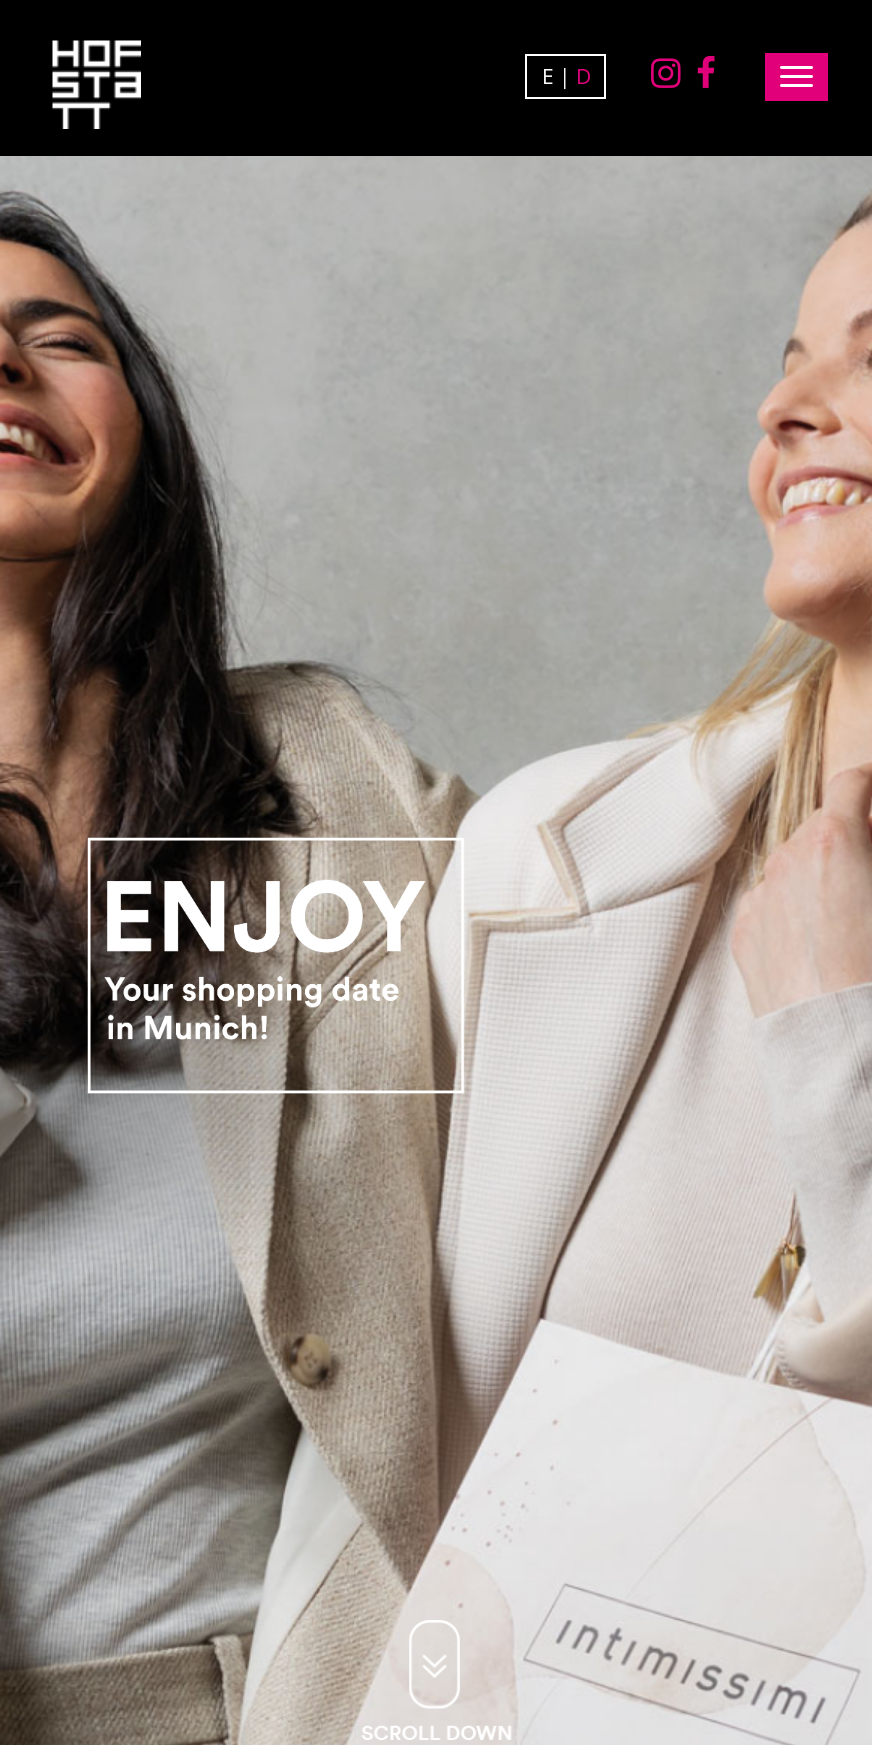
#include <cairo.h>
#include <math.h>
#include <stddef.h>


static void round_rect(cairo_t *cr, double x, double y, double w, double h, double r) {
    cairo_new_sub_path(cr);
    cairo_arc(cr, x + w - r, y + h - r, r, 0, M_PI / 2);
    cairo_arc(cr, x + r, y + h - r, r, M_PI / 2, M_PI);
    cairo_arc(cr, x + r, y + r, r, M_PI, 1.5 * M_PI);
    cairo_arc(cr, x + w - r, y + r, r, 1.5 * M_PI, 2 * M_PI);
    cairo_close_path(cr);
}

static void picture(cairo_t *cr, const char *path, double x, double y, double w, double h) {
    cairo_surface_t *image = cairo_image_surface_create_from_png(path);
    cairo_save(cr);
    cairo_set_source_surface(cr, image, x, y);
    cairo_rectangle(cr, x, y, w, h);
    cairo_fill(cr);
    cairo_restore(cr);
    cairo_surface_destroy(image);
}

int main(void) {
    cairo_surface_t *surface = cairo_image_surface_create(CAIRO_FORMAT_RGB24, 872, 1745);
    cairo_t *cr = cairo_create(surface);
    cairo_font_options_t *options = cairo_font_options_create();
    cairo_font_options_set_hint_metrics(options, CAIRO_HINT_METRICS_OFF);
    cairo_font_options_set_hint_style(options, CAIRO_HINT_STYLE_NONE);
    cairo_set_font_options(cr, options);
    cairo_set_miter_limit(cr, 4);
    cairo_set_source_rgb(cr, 1, 1, 1);
    cairo_paint(cr);
    cairo_set_source_rgb(cr, 0, 0, 0);
    cairo_rectangle(cr, 0, 0, 872, 156);
    cairo_fill(cr);
    picture(cr, "img1.png", 52, 40, 89, 89);
    cairo_set_source_rgb(cr, 0.886, 0, 0.478);
    cairo_rectangle(cr, 765, 53, 63, 48);
    cairo_fill(cr);
    cairo_set_source_rgb(cr, 1, 1, 1);
    round_rect(cr, 780, 66, 33, 3, 1.5);
    cairo_fill(cr);
    round_rect(cr, 780, 75, 33, 3, 1.5);
    cairo_fill(cr);
    round_rect(cr, 780, 84, 33, 3, 1.5);
    cairo_fill(cr);
    cairo_rectangle(cr, 526, 55, 79, 43);
    cairo_stroke(cr);
    cairo_select_font_face(cr, "Open Sans", CAIRO_FONT_SLANT_NORMAL, CAIRO_FONT_WEIGHT_NORMAL);
    cairo_set_font_size(cr, 21);
    cairo_move_to(cr, 542, 84);
    cairo_show_text(cr, "E |");
    cairo_set_source_rgb(cr, 0.886, 0, 0.478);
    cairo_move_to(cr, 576, 84);
    cairo_show_text(cr, "D");
    picture(cr, "img2.png", 651, 58, 30, 30);
    picture(cr, "img3.png", 697, 55, 18, 33);
    picture(cr, "img4.png", 0, 156, 872, 1589);
    picture(cr, "img5.png", 87, 837, 378, 257);
    picture(cr, "img6.png", 361, 1620, 151, 120);
    cairo_surface_write_to_png(surface, "page.png");
    cairo_font_options_destroy(options);
    cairo_destroy(cr);
    cairo_surface_destroy(surface);
    return 0;
}
